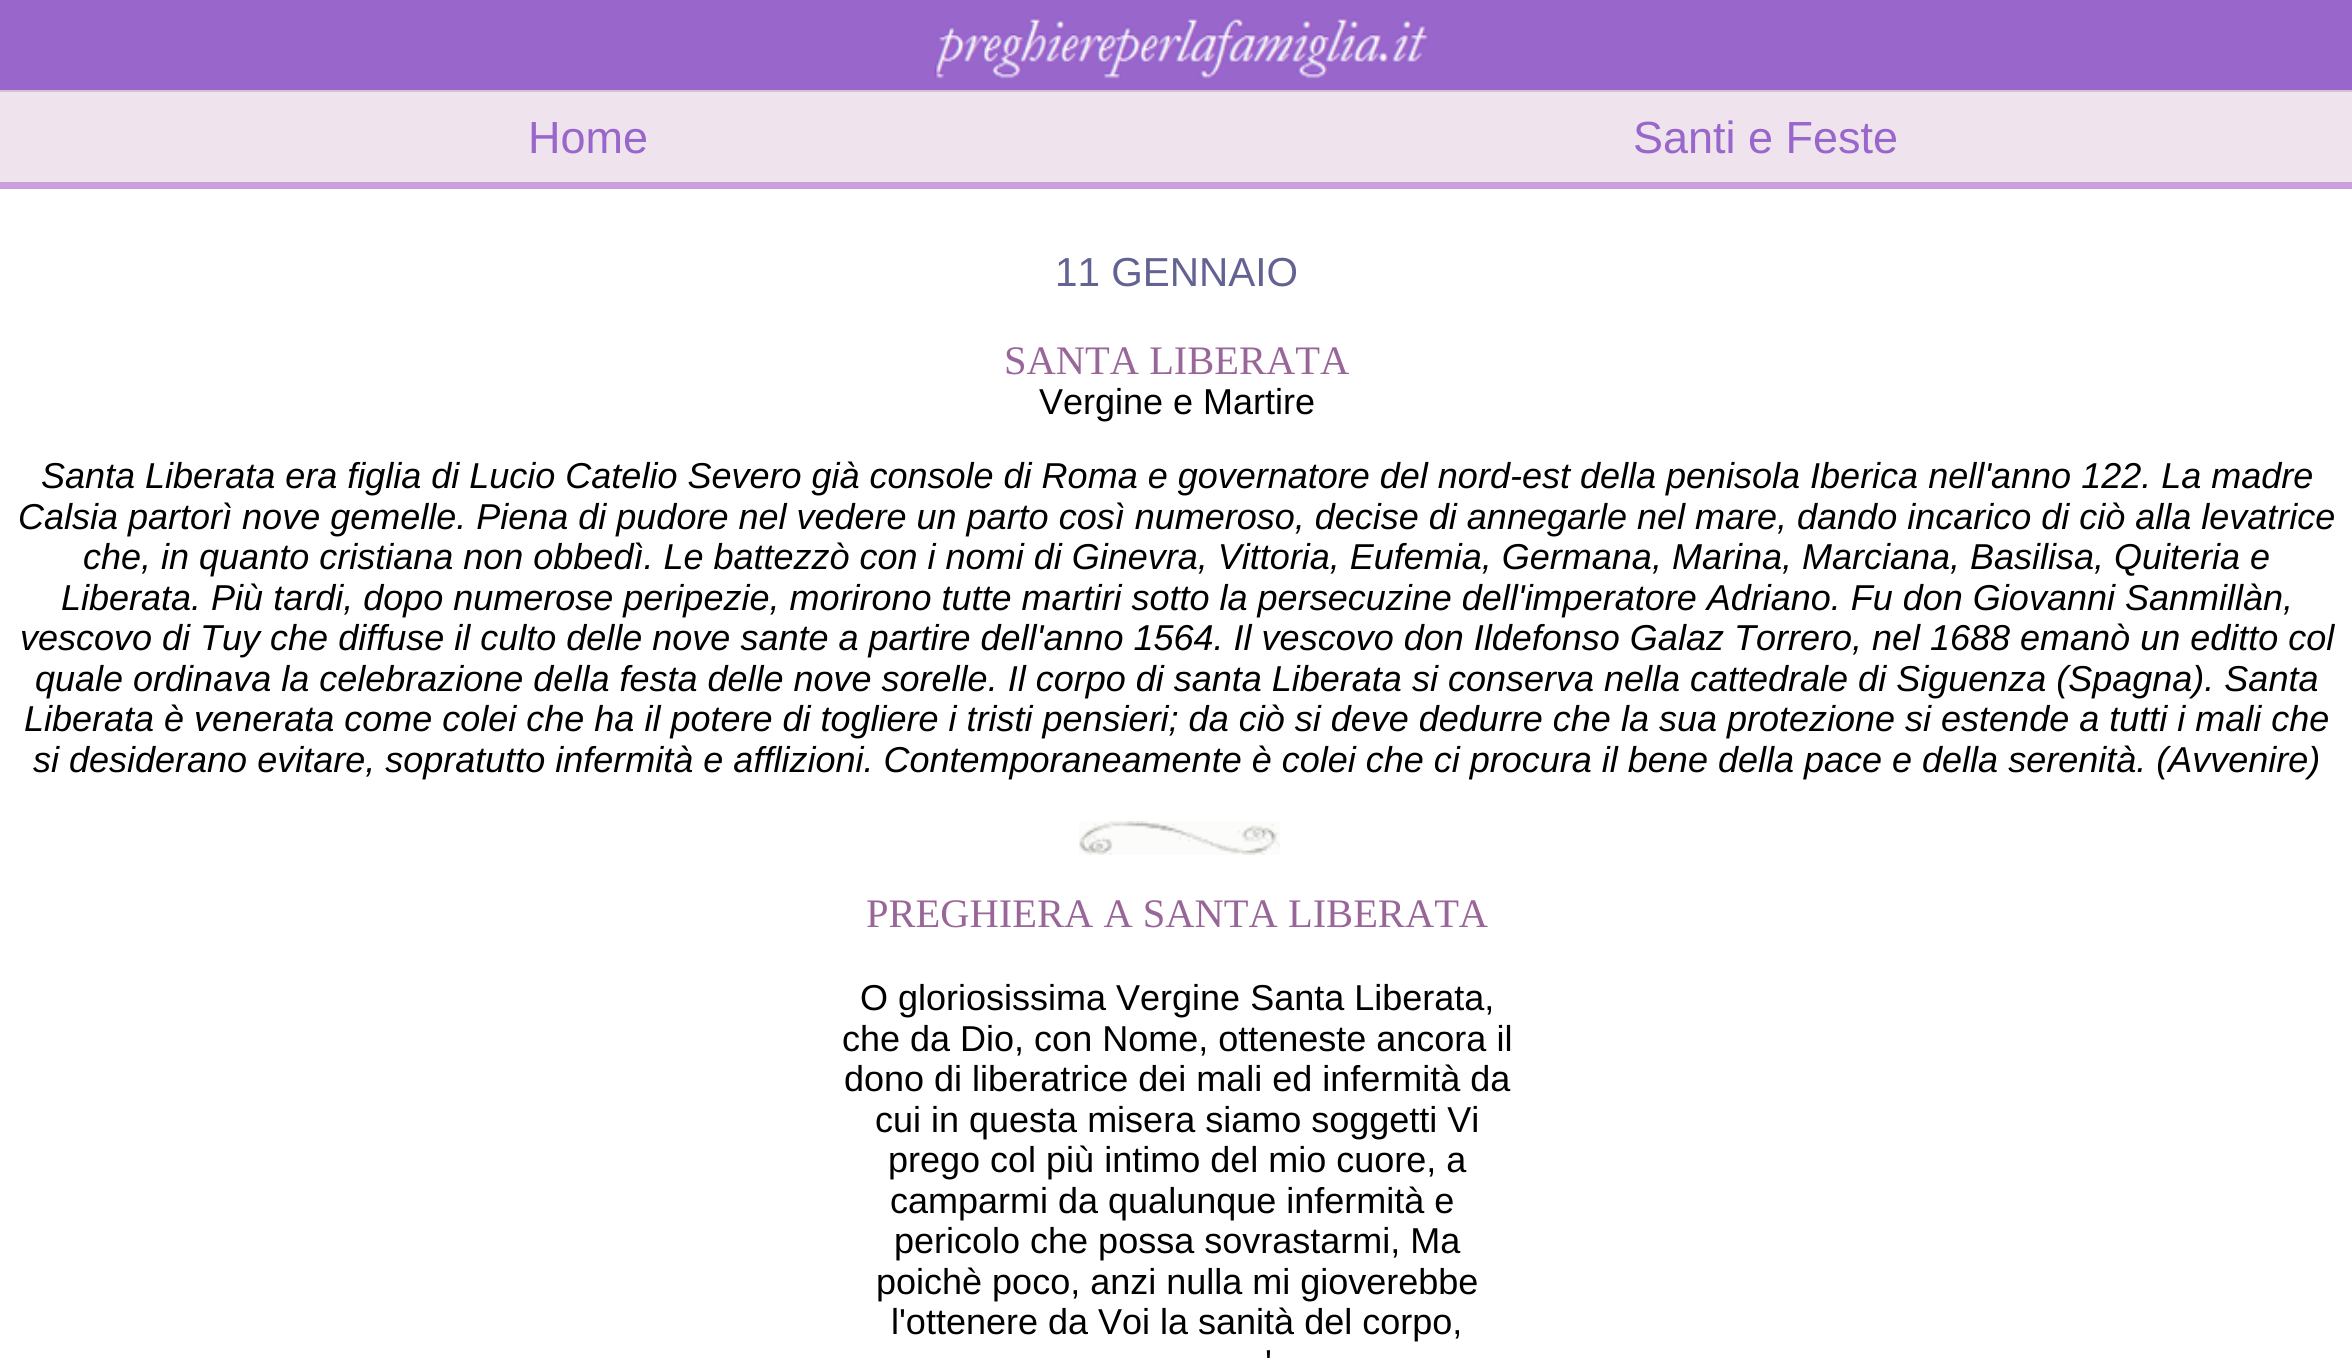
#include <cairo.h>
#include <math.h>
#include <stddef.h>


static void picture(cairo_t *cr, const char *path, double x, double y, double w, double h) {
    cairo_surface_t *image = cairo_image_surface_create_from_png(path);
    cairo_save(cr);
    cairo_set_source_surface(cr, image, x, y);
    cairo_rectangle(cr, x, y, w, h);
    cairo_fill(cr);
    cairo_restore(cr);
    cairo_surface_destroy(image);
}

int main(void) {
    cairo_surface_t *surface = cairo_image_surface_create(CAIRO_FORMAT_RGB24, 2352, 1364);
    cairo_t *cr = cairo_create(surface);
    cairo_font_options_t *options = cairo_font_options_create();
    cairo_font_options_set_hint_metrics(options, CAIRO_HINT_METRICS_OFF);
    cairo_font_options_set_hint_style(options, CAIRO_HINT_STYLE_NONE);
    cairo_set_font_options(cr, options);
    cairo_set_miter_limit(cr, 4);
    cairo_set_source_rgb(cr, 1, 1, 1);
    cairo_paint(cr);
    cairo_set_source_rgb(cr, 0.6, 0.4, 0.8);
    cairo_rectangle(cr, 0, 0, 2352, 90);
    cairo_fill(cr);
    cairo_set_source_rgb(cr, 0.847, 0.749, 0.847);
    cairo_rectangle(cr, 0, 90, 2352, 2);
    cairo_fill(cr);
    picture(cr, "img1.png", 934, 17, 494, 62);
    cairo_set_source_rgb(cr, 0.788, 0.627, 0.863);
    cairo_rectangle(cr, 0, 182, 2352, 7);
    cairo_fill(cr);
    cairo_set_source_rgb(cr, 0.937, 0.89, 0.929);
    cairo_rectangle(cr, 0, 92, 2352, 90);
    cairo_fill(cr);
    cairo_select_font_face(cr, "Liberation Sans", CAIRO_FONT_SLANT_NORMAL, CAIRO_FONT_WEIGHT_NORMAL);
    cairo_set_font_size(cr, 45);
    cairo_set_source_rgb(cr, 0.6, 0.4, 0.8);
    cairo_move_to(cr, 528, 153);
    cairo_show_text(cr, "Home");
    cairo_move_to(cr, 1633, 153);
    cairo_show_text(cr, "Santi e Feste");
    cairo_set_font_size(cr, 40.5);
    cairo_set_source_rgb(cr, 0.384, 0.384, 0.576);
    cairo_move_to(cr, 1055, 286);
    cairo_show_text(cr, "11 GENNAIO");
    cairo_select_font_face(cr, "Liberation Serif", CAIRO_FONT_SLANT_NORMAL, CAIRO_FONT_WEIGHT_NORMAL);
    cairo_set_source_rgb(cr, 0.6, 0.4, 0.6);
    cairo_move_to(cr, 1004, 374);
    cairo_show_text(cr, "SANTA LIBERATA");
    cairo_select_font_face(cr, "Liberation Sans", CAIRO_FONT_SLANT_NORMAL, CAIRO_FONT_WEIGHT_NORMAL);
    cairo_set_font_size(cr, 36);
    cairo_set_source_rgb(cr, 0, 0, 0);
    cairo_move_to(cr, 1039, 414);
    cairo_show_text(cr, "Vergine e Martire");
    cairo_select_font_face(cr, "Liberation Sans", CAIRO_FONT_SLANT_ITALIC, CAIRO_FONT_WEIGHT_NORMAL);
    cairo_move_to(cr, 41, 488);
    cairo_show_text(cr, "Santa Liberata era figlia di Lucio Catelio Severo già console di Roma e governatore del nord-est della penisola Iberica nell'anno 122. La madre");
    cairo_move_to(cr, 18, 529);
    cairo_show_text(cr, "Calsia partorì nove gemelle. Piena di pudore nel vedere un parto così numeroso, decise di annegarle nel mare, dando incarico di ciò alla levatrice");
    cairo_move_to(cr, 83, 569);
    cairo_show_text(cr, "che, in quanto cristiana non obbedì. Le battezzò con i nomi di Ginevra, Vittoria, Eufemia, Germana, Marina, Marciana, Basilisa, Quiteria e");
    cairo_move_to(cr, 61, 610);
    cairo_show_text(cr, "Liberata. Più tardi, dopo numerose peripezie, morirono tutte martiri sotto la persecuzine dell'imperatore Adriano. Fu don Giovanni Sanmillàn,");
    cairo_move_to(cr, 20, 650);
    cairo_show_text(cr, "vescovo di Tuy che diffuse il culto delle nove sante a partire dell'anno 1564. Il vescovo don Ildefonso Galaz Torrero, nel 1688 emanò un editto col");
    cairo_move_to(cr, 35, 691);
    cairo_show_text(cr, "quale ordinava la celebrazione della festa delle nove sorelle. Il corpo di santa Liberata si conserva nella cattedrale di Siguenza (Spagna). Santa");
    cairo_move_to(cr, 24, 731);
    cairo_show_text(cr, "Liberata è venerata come colei che ha il potere di togliere i tristi pensieri; da ciò si deve dedurre che la sua protezione si estende a tutti i mali che");
    cairo_move_to(cr, 33, 772);
    cairo_show_text(cr, "si desiderano evitare, sopratutto infermità e afflizioni. Contemporaneamente è colei che ci procura il bene della pace e della serenità. (Avvenire)");
    picture(cr, "img2.png", 1079, 821, 202, 34);
    cairo_select_font_face(cr, "Liberation Serif", CAIRO_FONT_SLANT_NORMAL, CAIRO_FONT_WEIGHT_NORMAL);
    cairo_set_font_size(cr, 40.5);
    cairo_set_source_rgb(cr, 0.6, 0.4, 0.6);
    cairo_move_to(cr, 866, 927);
    cairo_show_text(cr, "PREGHIERA A SANTA LIBERATA");
    cairo_select_font_face(cr, "Liberation Sans", CAIRO_FONT_SLANT_NORMAL, CAIRO_FONT_WEIGHT_NORMAL);
    cairo_set_font_size(cr, 36);
    cairo_set_source_rgb(cr, 0, 0, 0);
    cairo_move_to(cr, 860, 1010);
    cairo_show_text(cr, "O gloriosissima Vergine Santa Liberata,");
    cairo_move_to(cr, 842, 1051);
    cairo_show_text(cr, "che da Dio, con Nome, otteneste ancora il");
    cairo_move_to(cr, 844, 1091);
    cairo_show_text(cr, "dono di liberatrice dei mali ed infermità da");
    cairo_move_to(cr, 875, 1132);
    cairo_show_text(cr, "cui in questa misera siamo soggetti Vi");
    cairo_move_to(cr, 888, 1172);
    cairo_show_text(cr, "prego col più intimo del mio cuore, a");
    cairo_move_to(cr, 890, 1213);
    cairo_show_text(cr, "camparmi da qualunque infermità e");
    cairo_move_to(cr, 894, 1253);
    cairo_show_text(cr, "pericolo che possa sovrastarmi, Ma");
    cairo_move_to(cr, 876, 1294);
    cairo_show_text(cr, "poichè poco, anzi nulla mi gioverebbe");
    cairo_move_to(cr, 891, 1334);
    cairo_show_text(cr, "l'ottenere da Voi la sanità del corpo,");
    cairo_move_to(cr, 1265, 1375);
    cairo_show_text(cr, "'");
    cairo_surface_write_to_png(surface, "page.png");
    cairo_font_options_destroy(options);
    cairo_destroy(cr);
    cairo_surface_destroy(surface);
    return 0;
}
